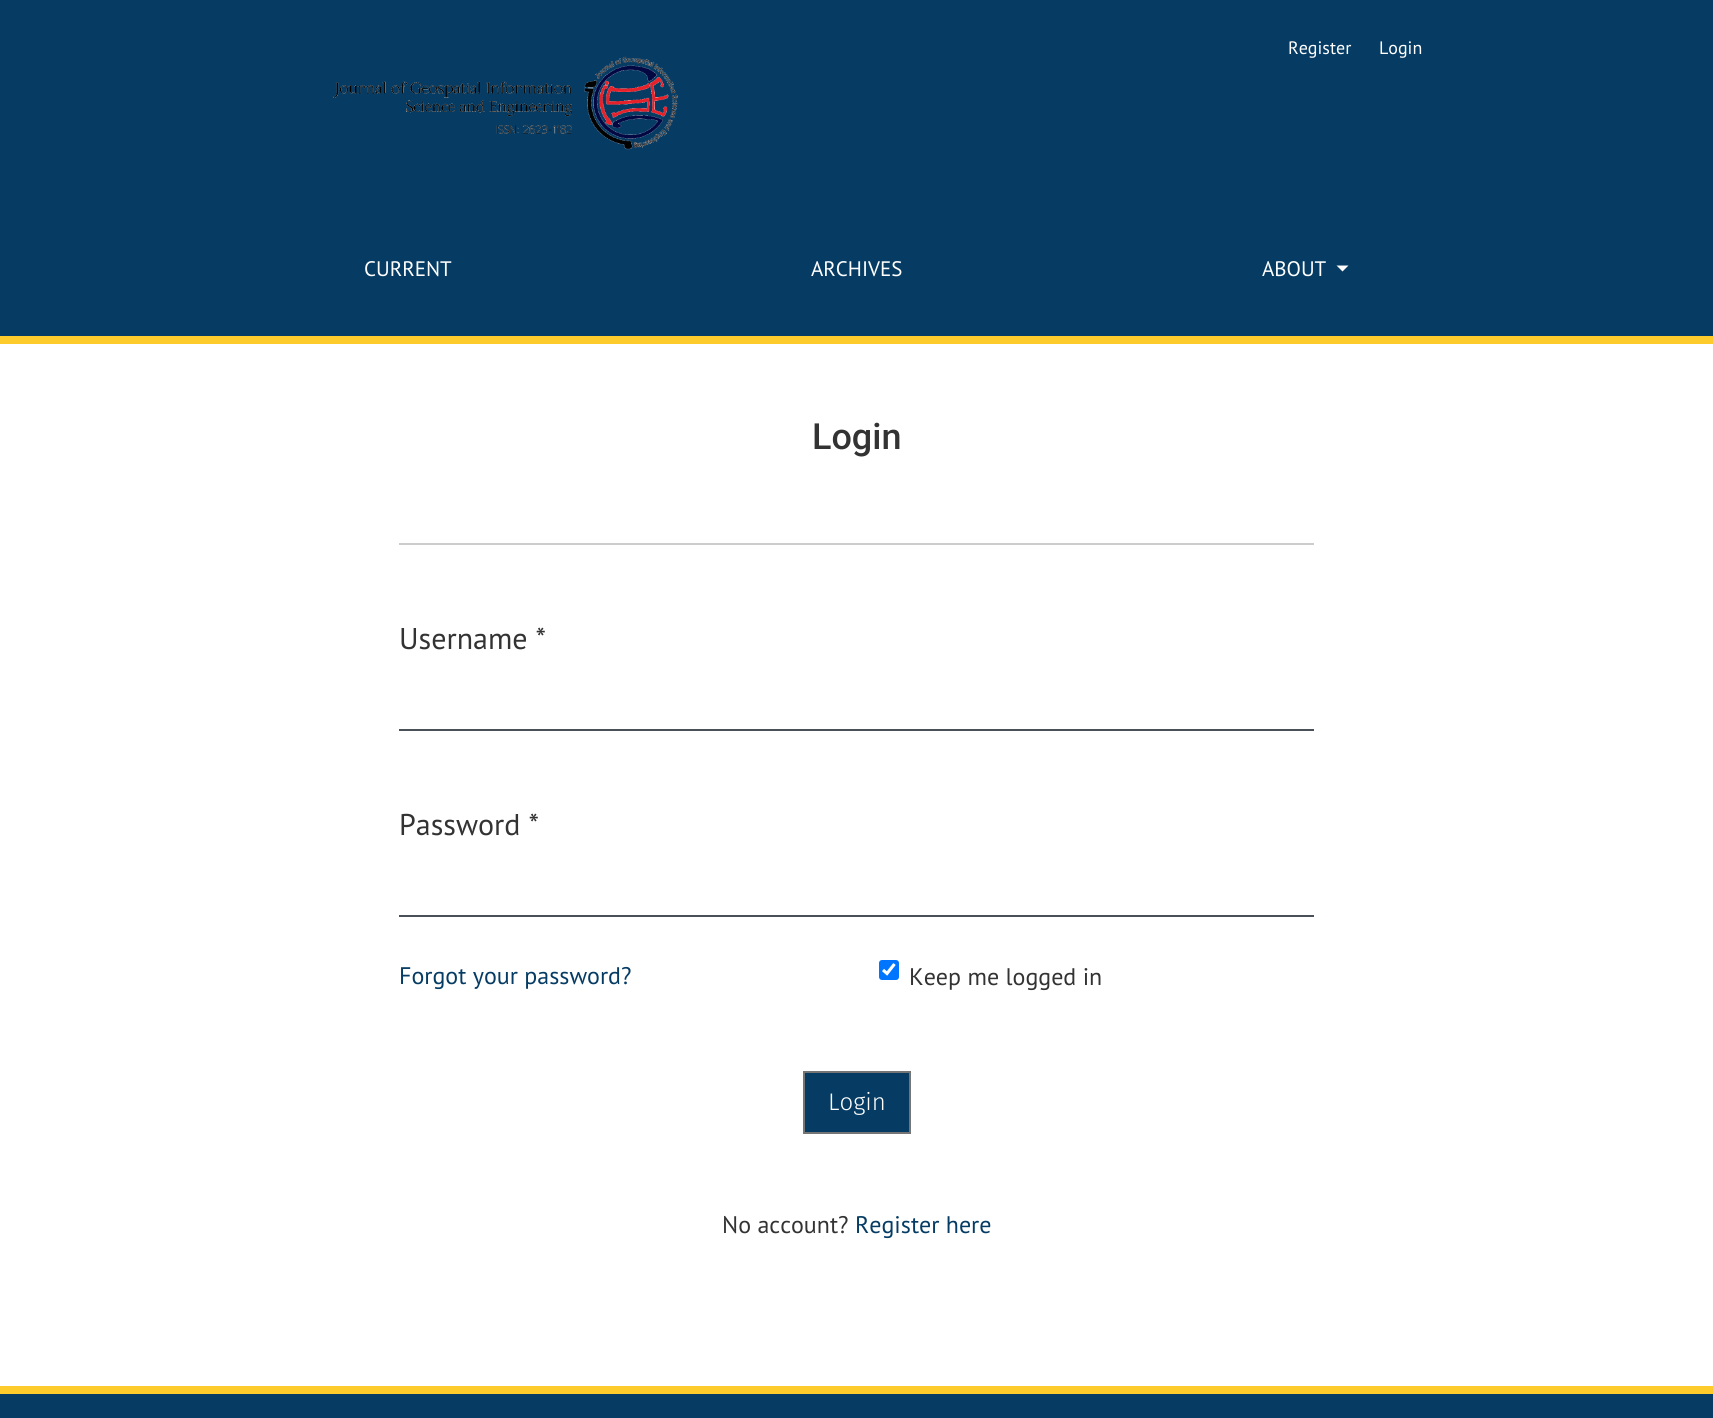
#include <cairo.h>
#include <math.h>
#include <stddef.h>


static void round_rect(cairo_t *cr, double x, double y, double w, double h, double r) {
    cairo_new_sub_path(cr);
    cairo_arc(cr, x + w - r, y + h - r, r, 0, M_PI / 2);
    cairo_arc(cr, x + r, y + h - r, r, M_PI / 2, M_PI);
    cairo_arc(cr, x + r, y + r, r, M_PI, 1.5 * M_PI);
    cairo_arc(cr, x + w - r, y + r, r, 1.5 * M_PI, 2 * M_PI);
    cairo_close_path(cr);
}

static void picture(cairo_t *cr, const char *path, double x, double y, double w, double h) {
    cairo_surface_t *image = cairo_image_surface_create_from_png(path);
    cairo_save(cr);
    cairo_set_source_surface(cr, image, x, y);
    cairo_rectangle(cr, x, y, w, h);
    cairo_fill(cr);
    cairo_restore(cr);
    cairo_surface_destroy(image);
}

int main(void) {
    cairo_surface_t *surface = cairo_image_surface_create(CAIRO_FORMAT_RGB24, 1713, 1418);
    cairo_t *cr = cairo_create(surface);
    cairo_font_options_t *options = cairo_font_options_create();
    cairo_font_options_set_hint_metrics(options, CAIRO_HINT_METRICS_OFF);
    cairo_font_options_set_hint_style(options, CAIRO_HINT_STYLE_NONE);
    cairo_set_font_options(cr, options);
    cairo_set_miter_limit(cr, 4);
    cairo_set_source_rgb(cr, 1, 1, 1);
    cairo_paint(cr);
    cairo_set_source_rgb(cr, 0.027, 0.235, 0.392);
    cairo_rectangle(cr, 0, 0, 1713, 336);
    cairo_fill(cr);
    cairo_set_source_rgb(cr, 0.992, 0.796, 0.173);
    cairo_rectangle(cr, 0, 336, 1713, 8);
    cairo_fill(cr);
    cairo_select_font_face(cr, "PT Sans", CAIRO_FONT_SLANT_NORMAL, CAIRO_FONT_WEIGHT_NORMAL);
    cairo_set_font_size(cr, 18);
    cairo_set_source_rgb(cr, 1, 1, 1);
    cairo_move_to(cr, 1288, 54);
    cairo_show_text(cr, "Register");
    cairo_move_to(cr, 1379, 54);
    cairo_show_text(cr, "Login");
    picture(cr, "img1.png", 333, 56, 345, 94);
    cairo_set_font_size(cr, 21);
    cairo_move_to(cr, 364, 276);
    cairo_show_text(cr, "CURRENT");
    cairo_move_to(cr, 811, 276);
    cairo_show_text(cr, "ARCHIVES");
    cairo_move_to(cr, 1262, 276);
    cairo_show_text(cr, "ABOUT");
    cairo_new_path(cr);
    cairo_move_to(cr, 1336.5, 265.5);
    cairo_line_to(cr, 1348.5, 265.5);
    cairo_line_to(cr, 1342.5, 271.5);
    cairo_close_path(cr);
    cairo_fill(cr);
    cairo_select_font_face(cr, "Roboto Medium", CAIRO_FONT_SLANT_NORMAL, CAIRO_FONT_WEIGHT_NORMAL);
    cairo_set_font_size(cr, 36);
    cairo_set_source_rgb(cr, 0.2, 0.2, 0.2);
    cairo_move_to(cr, 812, 449);
    cairo_show_text(cr, "Login");
    cairo_set_source_rgb(cr, 0.8, 0.8, 0.8);
    cairo_rectangle(cr, 399, 543, 915, 2);
    cairo_fill(cr);
    cairo_select_font_face(cr, "PT Sans", CAIRO_FONT_SLANT_NORMAL, CAIRO_FONT_WEIGHT_NORMAL);
    cairo_set_font_size(cr, 30);
    cairo_set_source_rgb(cr, 0.2, 0.2, 0.2);
    cairo_move_to(cr, 399, 649);
    cairo_show_text(cr, "Username *");
    cairo_set_source_rgb(cr, 0.286, 0.314, 0.341);
    cairo_rectangle(cr, 399, 729, 915, 2);
    cairo_fill(cr);
    cairo_set_source_rgb(cr, 0.2, 0.2, 0.2);
    cairo_move_to(cr, 399, 835);
    cairo_show_text(cr, "Password *");
    cairo_set_source_rgb(cr, 0.286, 0.314, 0.341);
    cairo_rectangle(cr, 399, 915, 915, 2);
    cairo_fill(cr);
    cairo_set_font_size(cr, 24);
    cairo_set_source_rgb(cr, 0.027, 0.235, 0.392);
    cairo_move_to(cr, 399, 984);
    cairo_show_text(cr, "Forgot your password?");
    cairo_set_source_rgb(cr, 0, 0.459, 1);
    round_rect(cr, 879, 960, 20, 20, 3);
    cairo_fill(cr);
    cairo_new_path(cr);
    cairo_move_to(cr, 883, 970);
    cairo_line_to(cr, 887, 973.5);
    cairo_line_to(cr, 894.5, 964);
    cairo_set_source_rgb(cr, 1, 1, 1);
    cairo_set_line_width(cr, 3.1);
    cairo_stroke(cr);
    cairo_set_source_rgb(cr, 0.2, 0.2, 0.2);
    cairo_move_to(cr, 909, 985);
    cairo_show_text(cr, "Keep me logged in");
    cairo_set_source_rgb(cr, 0.027, 0.235, 0.392);
    cairo_rectangle(cr, 804, 1072, 106, 61);
    cairo_fill_preserve(cr);
    cairo_set_source_rgb(cr, 0.459, 0.459, 0.459);
    cairo_set_line_width(cr, 2);
    cairo_stroke(cr);
    cairo_select_font_face(cr, "Fira Sans Light", CAIRO_FONT_SLANT_NORMAL, CAIRO_FONT_WEIGHT_NORMAL);
    cairo_set_source_rgb(cr, 1, 1, 1);
    cairo_move_to(cr, 828, 1110);
    cairo_show_text(cr, "Login");
    cairo_select_font_face(cr, "PT Sans", CAIRO_FONT_SLANT_NORMAL, CAIRO_FONT_WEIGHT_NORMAL);
    cairo_set_source_rgb(cr, 0.2, 0.2, 0.2);
    cairo_move_to(cr, 722, 1233);
    cairo_show_text(cr, "No account?");
    cairo_set_source_rgb(cr, 0.027, 0.235, 0.392);
    cairo_move_to(cr, 855, 1233);
    cairo_show_text(cr, "Register here");
    cairo_rectangle(cr, 0, 1394, 1713, 24);
    cairo_fill(cr);
    cairo_set_source_rgb(cr, 0.992, 0.796, 0.173);
    cairo_rectangle(cr, 0, 1386, 1713, 8);
    cairo_fill(cr);
    cairo_surface_write_to_png(surface, "page.png");
    cairo_font_options_destroy(options);
    cairo_destroy(cr);
    cairo_surface_destroy(surface);
    return 0;
}
